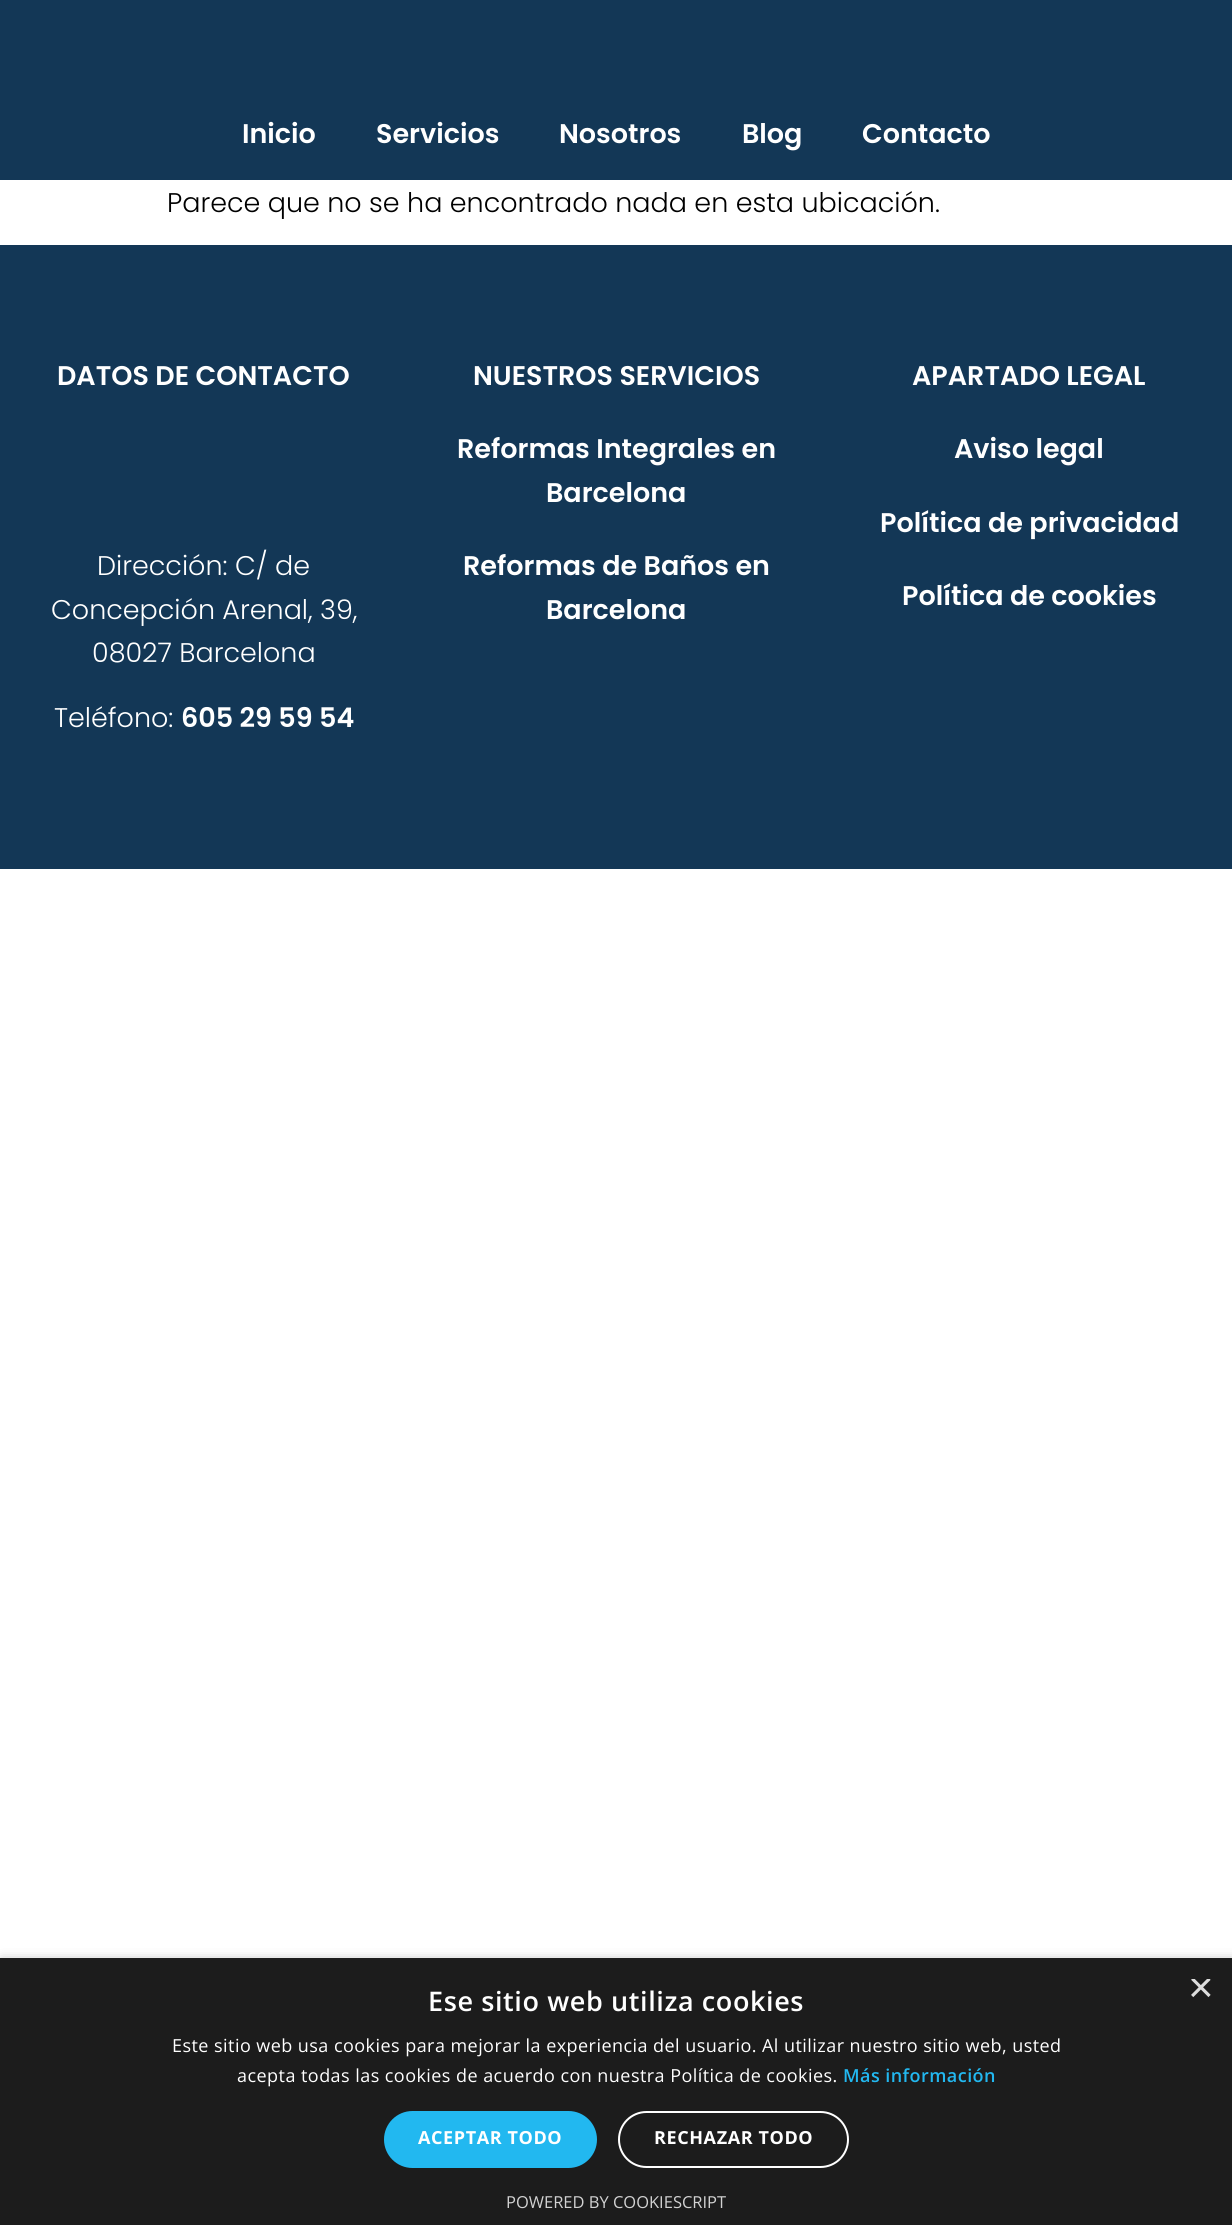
#include <cairo.h>
#include <math.h>
#include <stddef.h>


static void spaced_text(cairo_t *cr, double x, double y, const char *s, double letter, double word) {
    cairo_move_to(cr, x, y);
    while (*s) {
        char ch[5] = {0};
        int n = 0;
        do ch[n++] = *s++; while ((*s & 0xC0) == 0x80);
        cairo_show_text(cr, ch);
        cairo_rel_move_to(cr, letter + word * (*ch == ' '), 0);
    }
}

static void round_rect(cairo_t *cr, double x, double y, double w, double h, double r) {
    cairo_new_sub_path(cr);
    cairo_arc(cr, x + w - r, y + h - r, r, 0, M_PI / 2);
    cairo_arc(cr, x + r, y + h - r, r, M_PI / 2, M_PI);
    cairo_arc(cr, x + r, y + r, r, M_PI, 1.5 * M_PI);
    cairo_arc(cr, x + w - r, y + r, r, 1.5 * M_PI, 2 * M_PI);
    cairo_close_path(cr);
}

static void shadow(cairo_t *cr, double x, double y, double w, double h, double r, double blur, double alpha) {
    cairo_push_group_with_content(cr, CAIRO_CONTENT_ALPHA);
    cairo_set_operator(cr, CAIRO_OPERATOR_SOURCE);
    for (int i = 15; i >= -15 && fmin(w, h) + blur * i / 3 > 0; i -= 2) {
        double e = blur * i / 6;
        cairo_set_source_rgba(cr, 0, 0, 0, alpha * erfc((i - 1) / 8.5) / 2);
        round_rect(cr, x - e, y - e, w + 2 * e, h + 2 * e, fmax(0, fmin(r + e + blur * .6, fmin(w, h) / 2 + e)));
        cairo_fill(cr);
    }
    cairo_pattern_t *soft = cairo_pop_group(cr);
    cairo_mask(cr, soft);
    cairo_pattern_destroy(soft);
}

int main(void) {
    cairo_surface_t *surface = cairo_image_surface_create(CAIRO_FORMAT_RGB24, 1232, 2225);
    cairo_t *cr = cairo_create(surface);
    cairo_font_options_t *options = cairo_font_options_create();
    cairo_font_options_set_hint_metrics(options, CAIRO_HINT_METRICS_OFF);
    cairo_font_options_set_hint_style(options, CAIRO_HINT_STYLE_NONE);
    cairo_set_font_options(cr, options);
    cairo_set_miter_limit(cr, 4);
    cairo_set_source_rgb(cr, 1, 1, 1);
    cairo_paint(cr);
    cairo_set_source_rgb(cr, 0.078, 0.216, 0.337);
    cairo_rectangle(cr, 0, 0, 1232, 180);
    cairo_fill(cr);
    cairo_select_font_face(cr, "Poppins SemiBold", CAIRO_FONT_SLANT_NORMAL, CAIRO_FONT_WEIGHT_NORMAL);
    cairo_set_font_size(cr, 27);
    cairo_set_source_rgb(cr, 1, 1, 1);
    cairo_move_to(cr, 242, 143);
    cairo_show_text(cr, "Inicio");
    cairo_move_to(cr, 376, 143);
    cairo_show_text(cr, "Servicios");
    cairo_move_to(cr, 559, 143);
    cairo_show_text(cr, "Nosotros");
    cairo_move_to(cr, 742, 143);
    cairo_show_text(cr, "Blog");
    cairo_move_to(cr, 862, 143);
    cairo_show_text(cr, "Contacto");
    cairo_select_font_face(cr, "Poppins Light", CAIRO_FONT_SLANT_NORMAL, CAIRO_FONT_WEIGHT_NORMAL);
    cairo_set_source_rgb(cr, 0, 0, 0);
    cairo_move_to(cr, 167, 212);
    cairo_show_text(cr, "Parece que no se ha encontrado nada en esta ubicación.");
    cairo_set_source_rgb(cr, 0.078, 0.216, 0.337);
    cairo_rectangle(cr, 0, 245, 1232, 624);
    cairo_fill(cr);
    cairo_select_font_face(cr, "Poppins SemiBold", CAIRO_FONT_SLANT_NORMAL, CAIRO_FONT_WEIGHT_NORMAL);
    cairo_set_source_rgb(cr, 1, 1, 1);
    cairo_move_to(cr, 57, 385);
    cairo_show_text(cr, "DATOS DE CONTACTO");
    cairo_select_font_face(cr, "Poppins Light", CAIRO_FONT_SLANT_NORMAL, CAIRO_FONT_WEIGHT_NORMAL);
    cairo_move_to(cr, 97, 575);
    cairo_show_text(cr, "Dirección: C/ de");
    cairo_move_to(cr, 51, 619);
    cairo_show_text(cr, "Concepción Arenal, 39,");
    cairo_move_to(cr, 92, 662);
    cairo_show_text(cr, "08027 Barcelona");
    cairo_move_to(cr, 54, 727);
    cairo_show_text(cr, "Teléfono:");
    cairo_select_font_face(cr, "Poppins SemiBold", CAIRO_FONT_SLANT_NORMAL, CAIRO_FONT_WEIGHT_NORMAL);
    cairo_move_to(cr, 181, 727);
    cairo_show_text(cr, "605 29 59 54");
    cairo_move_to(cr, 473, 385);
    cairo_show_text(cr, "NUESTROS SERVICIOS");
    cairo_move_to(cr, 457, 458);
    cairo_show_text(cr, "Reformas Integrales en");
    cairo_move_to(cr, 546, 502);
    cairo_show_text(cr, "Barcelona");
    cairo_move_to(cr, 463, 575);
    cairo_show_text(cr, "Reformas de Baños en");
    cairo_move_to(cr, 546, 619);
    cairo_show_text(cr, "Barcelona");
    cairo_move_to(cr, 912, 385);
    cairo_show_text(cr, "APARTADO LEGAL");
    cairo_move_to(cr, 954, 458);
    cairo_show_text(cr, "Aviso legal");
    cairo_move_to(cr, 880, 532);
    cairo_show_text(cr, "Política de privacidad");
    cairo_move_to(cr, 902, 605);
    cairo_show_text(cr, "Política de cookies");
    cairo_set_source_rgb(cr, 0, 0, 0);
    shadow(cr, 2, 1961, 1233, 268, 0, 6, 0.35);
    cairo_set_source_rgb(cr, 0.11, 0.11, 0.11);
    cairo_rectangle(cr, 0, 1958, 1232, 267);
    cairo_fill(cr);
    cairo_select_font_face(cr, "Open Sans SemiBold", CAIRO_FONT_SLANT_NORMAL, CAIRO_FONT_WEIGHT_NORMAL);
    cairo_set_source_rgb(cr, 1, 1, 1);
    spaced_text(cr, 428, 2011, "Ese sitio web utiliza cookies", 0.6, 0);
    cairo_save(cr);
    cairo_rectangle(cr, 1188, 1979, 23, 22);
    cairo_clip(cr);
    cairo_select_font_face(cr, "Liberation Sans", CAIRO_FONT_SLANT_NORMAL, CAIRO_FONT_WEIGHT_NORMAL);
    cairo_set_font_size(cr, 44);
    cairo_set_source_rgb(cr, 0.867, 0.867, 0.867);
    cairo_move_to(cr, 1188, 2002);
    cairo_show_text(cr, "×");
    cairo_restore(cr);
    cairo_select_font_face(cr, "Open Sans", CAIRO_FONT_SLANT_NORMAL, CAIRO_FONT_WEIGHT_NORMAL);
    cairo_set_font_size(cr, 18);
    spaced_text(cr, 172, 2052, "Este sitio web usa cookies para mejorar la experiencia del usuario. Al utilizar nuestro sitio web, usted", 0.45, 0);
    spaced_text(cr, 237, 2082, "acepta todas las cookies de acuerdo con nuestra Política de cookies.", 0.45, 0);
    cairo_select_font_face(cr, "Open Sans SemiBold", CAIRO_FONT_SLANT_NORMAL, CAIRO_FONT_WEIGHT_NORMAL);
    cairo_set_source_rgb(cr, 0.133, 0.722, 0.941);
    spaced_text(cr, 843, 2082, "Más información", 0.45, 0);
    round_rect(cr, 384, 2111, 213, 57, 28.5);
    cairo_fill(cr);
    cairo_select_font_face(cr, "Open Sans", CAIRO_FONT_SLANT_NORMAL, CAIRO_FONT_WEIGHT_BOLD);
    cairo_set_source_rgb(cr, 1, 1, 1);
    spaced_text(cr, 418, 2144, "ACEPTAR TODO", 0.6, 0);
    round_rect(cr, 619, 2112, 229, 55, 27.5);
    cairo_stroke(cr);
    spaced_text(cr, 654, 2144, "RECHAZAR TODO", 0.6, 0);
    cairo_select_font_face(cr, "Open Sans", CAIRO_FONT_SLANT_NORMAL, CAIRO_FONT_WEIGHT_NORMAL);
    cairo_set_font_size(cr, 16.5);
    cairo_set_source_rgb(cr, 0.824, 0.824, 0.824);
    cairo_move_to(cr, 506, 2208);
    cairo_show_text(cr, "POWERED BY COOKIESCRIPT");
    cairo_surface_write_to_png(surface, "page.png");
    cairo_font_options_destroy(options);
    cairo_destroy(cr);
    cairo_surface_destroy(surface);
    return 0;
}
